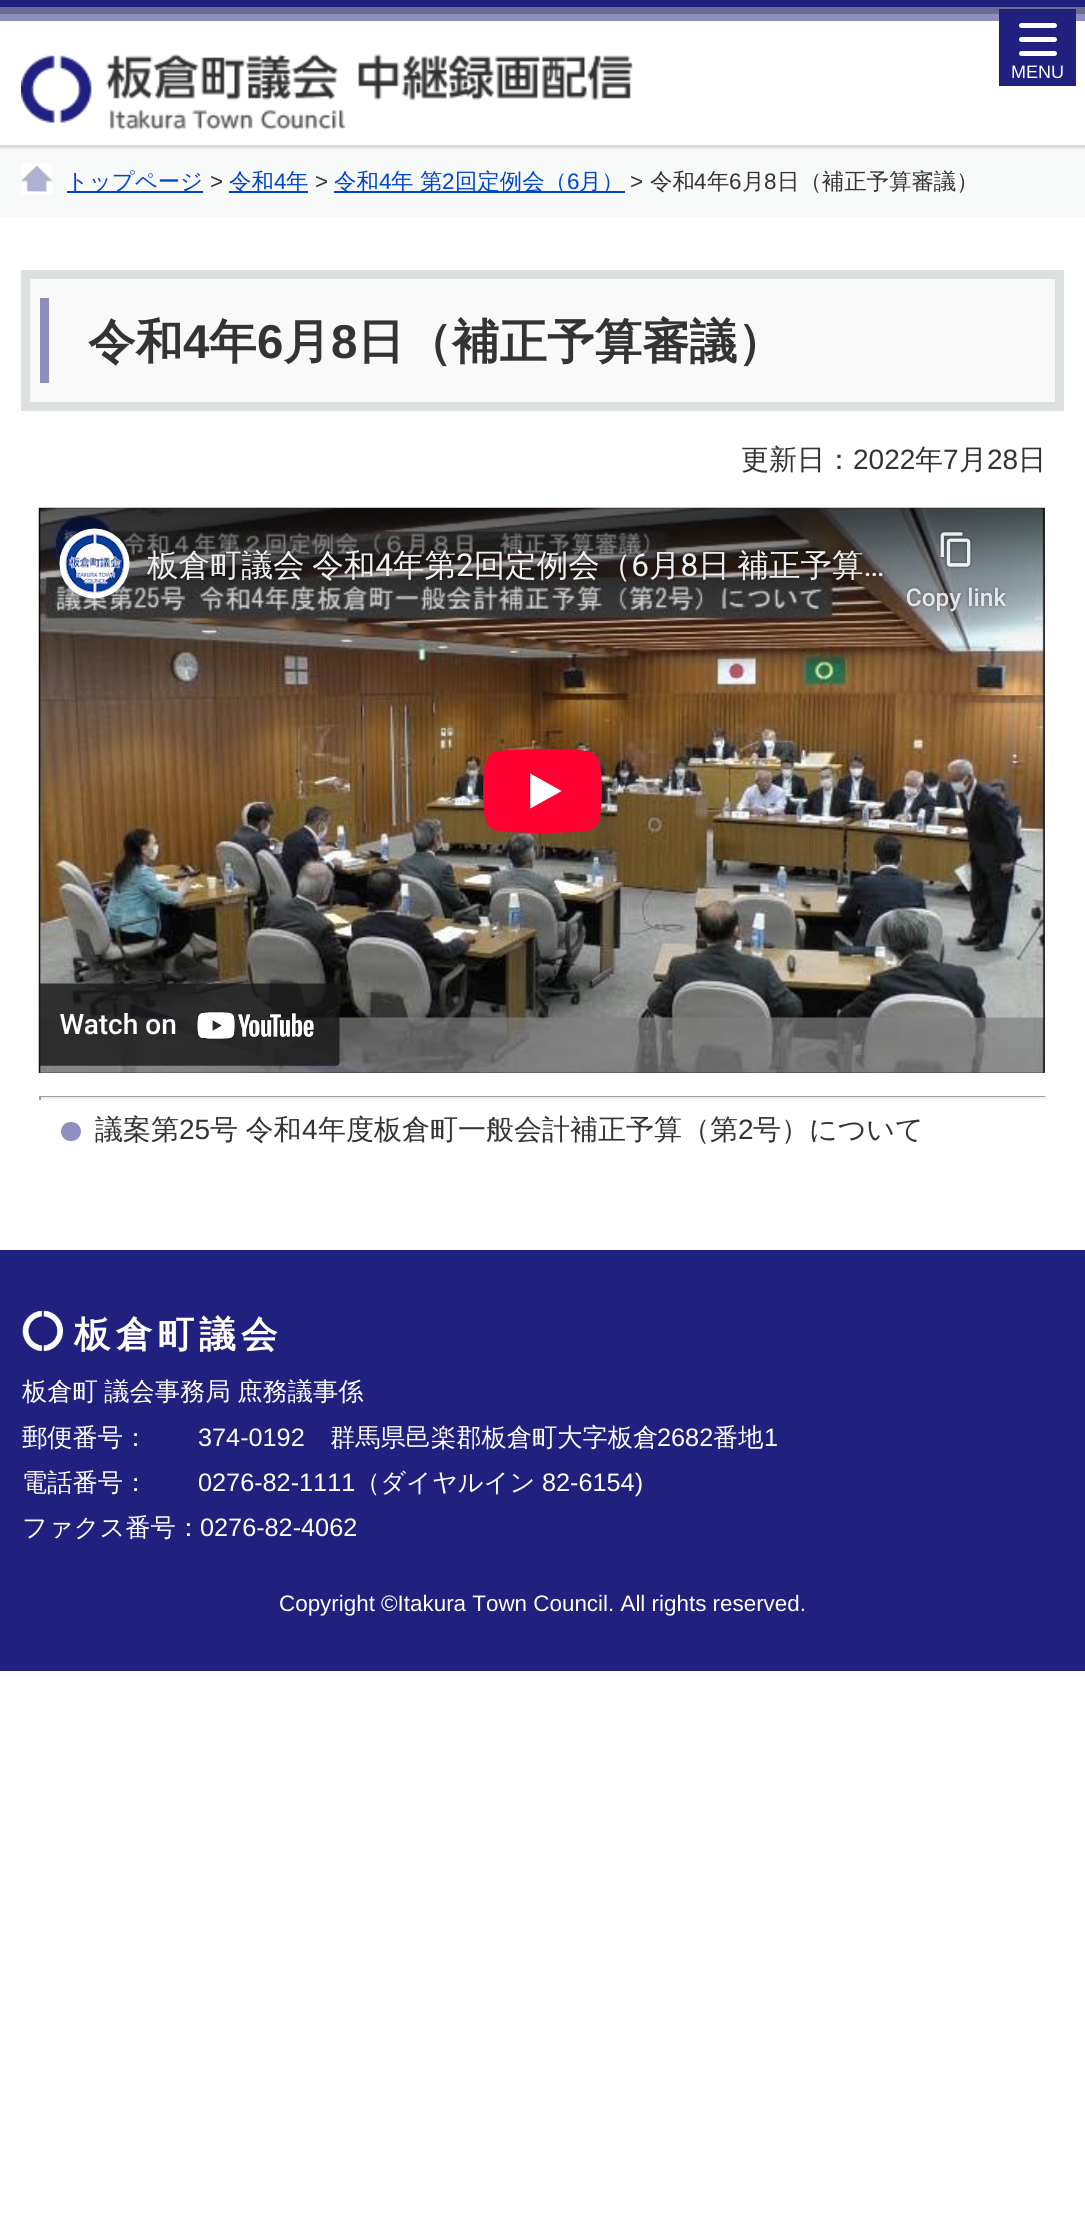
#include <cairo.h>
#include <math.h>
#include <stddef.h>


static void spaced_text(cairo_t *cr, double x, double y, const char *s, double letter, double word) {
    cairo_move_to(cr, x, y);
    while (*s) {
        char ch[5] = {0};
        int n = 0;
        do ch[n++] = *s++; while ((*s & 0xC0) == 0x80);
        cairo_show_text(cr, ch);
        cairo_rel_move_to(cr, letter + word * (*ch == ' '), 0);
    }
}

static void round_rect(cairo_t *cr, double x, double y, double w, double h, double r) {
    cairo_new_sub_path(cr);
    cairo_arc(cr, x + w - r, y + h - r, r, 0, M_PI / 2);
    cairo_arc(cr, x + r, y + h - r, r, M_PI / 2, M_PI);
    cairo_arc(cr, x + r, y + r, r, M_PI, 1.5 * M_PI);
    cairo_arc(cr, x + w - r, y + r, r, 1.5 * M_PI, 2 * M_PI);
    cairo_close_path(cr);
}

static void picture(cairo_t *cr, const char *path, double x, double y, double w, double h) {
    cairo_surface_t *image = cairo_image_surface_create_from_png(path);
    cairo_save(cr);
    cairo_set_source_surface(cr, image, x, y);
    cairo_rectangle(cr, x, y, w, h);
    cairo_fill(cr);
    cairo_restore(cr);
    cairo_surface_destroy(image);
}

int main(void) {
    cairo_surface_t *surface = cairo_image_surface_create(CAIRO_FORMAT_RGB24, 1085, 2215);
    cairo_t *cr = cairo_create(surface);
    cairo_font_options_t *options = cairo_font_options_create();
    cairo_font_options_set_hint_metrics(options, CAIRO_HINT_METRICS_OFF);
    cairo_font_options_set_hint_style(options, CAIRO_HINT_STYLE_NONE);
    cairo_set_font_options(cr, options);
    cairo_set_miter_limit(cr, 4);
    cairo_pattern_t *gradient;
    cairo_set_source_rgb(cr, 1, 1, 1);
    cairo_paint(cr);
    cairo_set_source_rgb(cr, 0.125, 0.125, 0.498);
    cairo_rectangle(cr, 0, 0, 1085, 7);
    cairo_fill(cr);
    cairo_set_source_rgb(cr, 0.424, 0.424, 0.565);
    cairo_rectangle(cr, 0, 7, 1085, 7);
    cairo_fill(cr);
    cairo_set_source_rgb(cr, 0.557, 0.557, 0.745);
    cairo_rectangle(cr, 0, 14, 1085, 7);
    cairo_fill(cr);
    picture(cr, "img1.png", 21, 54, 612, 76);
    cairo_set_source_rgb(cr, 0.125, 0.125, 0.498);
    cairo_rectangle(cr, 999, 9, 77, 77);
    cairo_fill(cr);
    cairo_set_source_rgb(cr, 1, 1, 1);
    round_rect(cr, 1019, 23, 38, 5, 2.5);
    cairo_fill(cr);
    round_rect(cr, 1019, 37, 38, 5, 2.5);
    cairo_fill(cr);
    round_rect(cr, 1019, 51, 38, 5, 2.5);
    cairo_fill(cr);
    cairo_select_font_face(cr, "Liberation Sans", CAIRO_FONT_SLANT_NORMAL, CAIRO_FONT_WEIGHT_NORMAL);
    cairo_set_font_size(cr, 18);
    cairo_move_to(cr, 1011, 78);
    cairo_show_text(cr, "MENU");
    gradient = cairo_pattern_create_linear(543, 145, 543, 217);
    cairo_pattern_add_color_stop_rgba(gradient, 0, 0.851, 0.851, 0.851, 1);
    cairo_pattern_add_color_stop_rgba(gradient, 0.02, 0.851, 0.851, 0.851, 1);
    cairo_pattern_add_color_stop_rgba(gradient, 0.07, 0.973, 0.976, 0.976, 1);
    cairo_set_source(cr, gradient);
    cairo_pattern_destroy(gradient);
    cairo_rectangle(cr, 0, 145, 1085, 72);
    cairo_fill(cr);
    picture(cr, "img2.png", 21, 163, 32, 31);
    cairo_set_source_rgb(cr, 0, 0.267, 0.8);
    cairo_rectangle(cr, 67, 191, 136, 2);
    cairo_fill(cr);
    cairo_select_font_face(cr, "WenQuanYi Zen Hei Medium", CAIRO_FONT_SLANT_NORMAL, CAIRO_FONT_WEIGHT_NORMAL);
    cairo_set_font_size(cr, 22.4);
    cairo_move_to(cr, 66, 189);
    cairo_show_text(cr, "トップページ");
    cairo_select_font_face(cr, "Liberation Sans", CAIRO_FONT_SLANT_NORMAL, CAIRO_FONT_WEIGHT_NORMAL);
    cairo_set_source_rgb(cr, 0.2, 0.2, 0.2);
    cairo_move_to(cr, 210, 189);
    cairo_show_text(cr, ">");
    cairo_set_source_rgb(cr, 0, 0.267, 0.8);
    cairo_rectangle(cr, 229, 191, 79, 2);
    cairo_fill(cr);
    cairo_select_font_face(cr, "WenQuanYi Zen Hei Medium", CAIRO_FONT_SLANT_NORMAL, CAIRO_FONT_WEIGHT_NORMAL);
    cairo_move_to(cr, 229, 189);
    cairo_show_text(cr, "令和");
    cairo_select_font_face(cr, "Liberation Sans", CAIRO_FONT_SLANT_NORMAL, CAIRO_FONT_WEIGHT_NORMAL);
    cairo_move_to(cr, 274, 189);
    cairo_show_text(cr, "4");
    cairo_select_font_face(cr, "WenQuanYi Zen Hei Medium", CAIRO_FONT_SLANT_NORMAL, CAIRO_FONT_WEIGHT_NORMAL);
    cairo_move_to(cr, 286, 189);
    cairo_show_text(cr, "年");
    cairo_select_font_face(cr, "Liberation Sans", CAIRO_FONT_SLANT_NORMAL, CAIRO_FONT_WEIGHT_NORMAL);
    cairo_set_source_rgb(cr, 0.2, 0.2, 0.2);
    cairo_move_to(cr, 315, 189);
    cairo_show_text(cr, ">");
    cairo_set_source_rgb(cr, 0, 0.267, 0.8);
    cairo_rectangle(cr, 334, 191, 291, 2);
    cairo_fill(cr);
    cairo_select_font_face(cr, "WenQuanYi Zen Hei Medium", CAIRO_FONT_SLANT_NORMAL, CAIRO_FONT_WEIGHT_NORMAL);
    cairo_move_to(cr, 334, 189);
    cairo_show_text(cr, "令和");
    cairo_select_font_face(cr, "Liberation Sans", CAIRO_FONT_SLANT_NORMAL, CAIRO_FONT_WEIGHT_NORMAL);
    cairo_move_to(cr, 379, 189);
    cairo_show_text(cr, "4");
    cairo_select_font_face(cr, "WenQuanYi Zen Hei Medium", CAIRO_FONT_SLANT_NORMAL, CAIRO_FONT_WEIGHT_NORMAL);
    cairo_move_to(cr, 391, 189);
    cairo_show_text(cr, "年 第");
    cairo_select_font_face(cr, "Liberation Sans", CAIRO_FONT_SLANT_NORMAL, CAIRO_FONT_WEIGHT_NORMAL);
    cairo_move_to(cr, 442, 189);
    cairo_show_text(cr, "2");
    cairo_select_font_face(cr, "WenQuanYi Zen Hei Medium", CAIRO_FONT_SLANT_NORMAL, CAIRO_FONT_WEIGHT_NORMAL);
    cairo_move_to(cr, 455, 189);
    cairo_show_text(cr, "回定例会（");
    cairo_select_font_face(cr, "Liberation Sans", CAIRO_FONT_SLANT_NORMAL, CAIRO_FONT_WEIGHT_NORMAL);
    cairo_move_to(cr, 567, 189);
    cairo_show_text(cr, "6");
    cairo_select_font_face(cr, "WenQuanYi Zen Hei Medium", CAIRO_FONT_SLANT_NORMAL, CAIRO_FONT_WEIGHT_NORMAL);
    cairo_move_to(cr, 579, 189);
    cairo_show_text(cr, "月）");
    cairo_select_font_face(cr, "Liberation Sans", CAIRO_FONT_SLANT_NORMAL, CAIRO_FONT_WEIGHT_NORMAL);
    cairo_set_source_rgb(cr, 0.2, 0.2, 0.2);
    cairo_move_to(cr, 630, 189);
    cairo_show_text(cr, ">");
    cairo_select_font_face(cr, "WenQuanYi Zen Hei Medium", CAIRO_FONT_SLANT_NORMAL, CAIRO_FONT_WEIGHT_NORMAL);
    cairo_move_to(cr, 650, 189);
    cairo_show_text(cr, "令和");
    cairo_select_font_face(cr, "Liberation Sans", CAIRO_FONT_SLANT_NORMAL, CAIRO_FONT_WEIGHT_NORMAL);
    cairo_move_to(cr, 694, 189);
    cairo_show_text(cr, "4");
    cairo_select_font_face(cr, "WenQuanYi Zen Hei Medium", CAIRO_FONT_SLANT_NORMAL, CAIRO_FONT_WEIGHT_NORMAL);
    cairo_move_to(cr, 707, 189);
    cairo_show_text(cr, "年");
    cairo_select_font_face(cr, "Liberation Sans", CAIRO_FONT_SLANT_NORMAL, CAIRO_FONT_WEIGHT_NORMAL);
    cairo_move_to(cr, 729, 189);
    cairo_show_text(cr, "6");
    cairo_select_font_face(cr, "WenQuanYi Zen Hei Medium", CAIRO_FONT_SLANT_NORMAL, CAIRO_FONT_WEIGHT_NORMAL);
    cairo_move_to(cr, 742, 189);
    cairo_show_text(cr, "月");
    cairo_select_font_face(cr, "Liberation Sans", CAIRO_FONT_SLANT_NORMAL, CAIRO_FONT_WEIGHT_NORMAL);
    cairo_move_to(cr, 764, 189);
    cairo_show_text(cr, "8");
    cairo_select_font_face(cr, "WenQuanYi Zen Hei Medium", CAIRO_FONT_SLANT_NORMAL, CAIRO_FONT_WEIGHT_NORMAL);
    cairo_move_to(cr, 777, 189);
    cairo_show_text(cr, "日（補正予算審議）");
    cairo_set_source_rgb(cr, 0.973, 0.976, 0.976);
    cairo_rectangle(cr, 25.5, 274.5, 1034, 132);
    cairo_fill_preserve(cr);
    cairo_set_source_rgb(cr, 0.863, 0.882, 0.878);
    cairo_set_line_width(cr, 9);
    cairo_stroke(cr);
    cairo_set_source_rgb(cr, 0.557, 0.557, 0.745);
    cairo_rectangle(cr, 40, 298, 9, 85);
    cairo_fill(cr);
    cairo_select_font_face(cr, "WenQuanYi Zen Hei", CAIRO_FONT_SLANT_NORMAL, CAIRO_FONT_WEIGHT_BOLD);
    cairo_set_font_size(cr, 47.5);
    cairo_set_source_rgb(cr, 0.2, 0.2, 0.2);
    cairo_move_to(cr, 88, 358);
    cairo_show_text(cr, "令和");
    cairo_select_font_face(cr, "Liberation Sans", CAIRO_FONT_SLANT_NORMAL, CAIRO_FONT_WEIGHT_BOLD);
    cairo_move_to(cr, 183, 358);
    cairo_show_text(cr, "4");
    cairo_select_font_face(cr, "WenQuanYi Zen Hei", CAIRO_FONT_SLANT_NORMAL, CAIRO_FONT_WEIGHT_BOLD);
    cairo_move_to(cr, 209, 358);
    cairo_show_text(cr, "年");
    cairo_select_font_face(cr, "Liberation Sans", CAIRO_FONT_SLANT_NORMAL, CAIRO_FONT_WEIGHT_BOLD);
    cairo_move_to(cr, 257, 358);
    cairo_show_text(cr, "6");
    cairo_select_font_face(cr, "WenQuanYi Zen Hei", CAIRO_FONT_SLANT_NORMAL, CAIRO_FONT_WEIGHT_BOLD);
    cairo_move_to(cr, 283, 358);
    cairo_show_text(cr, "月");
    cairo_select_font_face(cr, "Liberation Sans", CAIRO_FONT_SLANT_NORMAL, CAIRO_FONT_WEIGHT_BOLD);
    cairo_move_to(cr, 331, 358);
    cairo_show_text(cr, "8");
    cairo_select_font_face(cr, "WenQuanYi Zen Hei", CAIRO_FONT_SLANT_NORMAL, CAIRO_FONT_WEIGHT_BOLD);
    cairo_move_to(cr, 357, 358);
    cairo_show_text(cr, "日（補正予算審議）");
    cairo_select_font_face(cr, "WenQuanYi Zen Hei Medium", CAIRO_FONT_SLANT_NORMAL, CAIRO_FONT_WEIGHT_NORMAL);
    cairo_set_font_size(cr, 28);
    cairo_move_to(cr, 741, 469);
    cairo_show_text(cr, "更新日：");
    cairo_select_font_face(cr, "Liberation Sans", CAIRO_FONT_SLANT_NORMAL, CAIRO_FONT_WEIGHT_NORMAL);
    cairo_move_to(cr, 853, 469);
    cairo_show_text(cr, "2022");
    cairo_select_font_face(cr, "WenQuanYi Zen Hei Medium", CAIRO_FONT_SLANT_NORMAL, CAIRO_FONT_WEIGHT_NORMAL);
    cairo_move_to(cr, 915, 469);
    cairo_show_text(cr, "年");
    cairo_select_font_face(cr, "Liberation Sans", CAIRO_FONT_SLANT_NORMAL, CAIRO_FONT_WEIGHT_NORMAL);
    cairo_move_to(cr, 943, 469);
    cairo_show_text(cr, "7");
    cairo_select_font_face(cr, "WenQuanYi Zen Hei Medium", CAIRO_FONT_SLANT_NORMAL, CAIRO_FONT_WEIGHT_NORMAL);
    cairo_move_to(cr, 959, 469);
    cairo_show_text(cr, "月");
    cairo_select_font_face(cr, "Liberation Sans", CAIRO_FONT_SLANT_NORMAL, CAIRO_FONT_WEIGHT_NORMAL);
    cairo_move_to(cr, 987, 469);
    cairo_show_text(cr, "28");
    cairo_select_font_face(cr, "WenQuanYi Zen Hei Medium", CAIRO_FONT_SLANT_NORMAL, CAIRO_FONT_WEIGHT_NORMAL);
    cairo_move_to(cr, 1018, 469);
    cairo_show_text(cr, "日");
    picture(cr, "img3.png", 38, 507, 1007, 566);
    cairo_set_source_rgb(cr, 0.624, 0.624, 0.624);
    cairo_rectangle(cr, 39, 1096, 1008, 1);
    cairo_fill(cr);
    cairo_set_source_rgb(cr, 0.933, 0.933, 0.933);
    cairo_rectangle(cr, 1045, 1096, 2, 4);
    cairo_fill(cr);
    cairo_rectangle(cr, 39, 1097, 1008, 2);
    cairo_fill(cr);
    cairo_set_source_rgb(cr, 0.624, 0.624, 0.624);
    cairo_rectangle(cr, 39, 1096, 2, 4);
    cairo_fill(cr);
    cairo_set_source_rgb(cr, 0.565, 0.565, 0.753);
    round_rect(cr, 61, 1122, 20, 19, 9.5);
    cairo_fill(cr);
    cairo_set_source_rgb(cr, 0.2, 0.2, 0.2);
    cairo_move_to(cr, 95, 1139);
    cairo_show_text(cr, "議案第");
    cairo_select_font_face(cr, "Liberation Sans", CAIRO_FONT_SLANT_NORMAL, CAIRO_FONT_WEIGHT_NORMAL);
    cairo_move_to(cr, 179, 1139);
    cairo_show_text(cr, "25");
    cairo_select_font_face(cr, "WenQuanYi Zen Hei Medium", CAIRO_FONT_SLANT_NORMAL, CAIRO_FONT_WEIGHT_NORMAL);
    spaced_text(cr, 210, 1139, "号 令和", 0, -1);
    cairo_select_font_face(cr, "Liberation Sans", CAIRO_FONT_SLANT_NORMAL, CAIRO_FONT_WEIGHT_NORMAL);
    cairo_move_to(cr, 302, 1139);
    cairo_show_text(cr, "4");
    cairo_select_font_face(cr, "WenQuanYi Zen Hei Medium", CAIRO_FONT_SLANT_NORMAL, CAIRO_FONT_WEIGHT_NORMAL);
    cairo_move_to(cr, 318, 1139);
    cairo_show_text(cr, "年度板倉町一般会計補正予算（第");
    cairo_select_font_face(cr, "Liberation Sans", CAIRO_FONT_SLANT_NORMAL, CAIRO_FONT_WEIGHT_NORMAL);
    cairo_move_to(cr, 738, 1139);
    cairo_show_text(cr, "2");
    cairo_select_font_face(cr, "WenQuanYi Zen Hei Medium", CAIRO_FONT_SLANT_NORMAL, CAIRO_FONT_WEIGHT_NORMAL);
    cairo_move_to(cr, 753, 1139);
    cairo_show_text(cr, "号）について");
    cairo_set_source_rgb(cr, 0.125, 0.125, 0.498);
    cairo_rectangle(cr, 0, 1250, 1085, 421);
    cairo_fill(cr);
    picture(cr, "img4.png", 22, 1310, 41, 41);
    cairo_select_font_face(cr, "WenQuanYi Zen Hei", CAIRO_FONT_SLANT_NORMAL, CAIRO_FONT_WEIGHT_BOLD);
    cairo_set_font_size(cr, 36.5);
    cairo_set_source_rgb(cr, 1, 1, 1);
    spaced_text(cr, 74, 1347, "板倉町議会", 5.25, 0);
    cairo_select_font_face(cr, "WenQuanYi Zen Hei Medium", CAIRO_FONT_SLANT_NORMAL, CAIRO_FONT_WEIGHT_NORMAL);
    cairo_set_font_size(cr, 25.25);
    spaced_text(cr, 22, 1400, "板倉町 議会事務局 庶務議事係", 0, -1);
    cairo_move_to(cr, 22, 1446);
    cairo_show_text(cr, "郵便番号：");
    cairo_select_font_face(cr, "Liberation Sans", CAIRO_FONT_SLANT_NORMAL, CAIRO_FONT_WEIGHT_NORMAL);
    cairo_move_to(cr, 198, 1446);
    cairo_show_text(cr, "374-0192");
    cairo_select_font_face(cr, "WenQuanYi Zen Hei Medium", CAIRO_FONT_SLANT_NORMAL, CAIRO_FONT_WEIGHT_NORMAL);
    cairo_move_to(cr, 330, 1446);
    cairo_show_text(cr, "群馬県邑楽郡板倉町大字板倉");
    cairo_select_font_face(cr, "Liberation Sans", CAIRO_FONT_SLANT_NORMAL, CAIRO_FONT_WEIGHT_NORMAL);
    cairo_move_to(cr, 657, 1446);
    cairo_show_text(cr, "2682");
    cairo_select_font_face(cr, "WenQuanYi Zen Hei Medium", CAIRO_FONT_SLANT_NORMAL, CAIRO_FONT_WEIGHT_NORMAL);
    cairo_move_to(cr, 713, 1446);
    cairo_show_text(cr, "番地");
    cairo_select_font_face(cr, "Liberation Sans", CAIRO_FONT_SLANT_NORMAL, CAIRO_FONT_WEIGHT_NORMAL);
    cairo_move_to(cr, 764, 1446);
    cairo_show_text(cr, "1");
    cairo_select_font_face(cr, "WenQuanYi Zen Hei Medium", CAIRO_FONT_SLANT_NORMAL, CAIRO_FONT_WEIGHT_NORMAL);
    cairo_move_to(cr, 22, 1491);
    cairo_show_text(cr, "電話番号：");
    cairo_select_font_face(cr, "Liberation Sans", CAIRO_FONT_SLANT_NORMAL, CAIRO_FONT_WEIGHT_NORMAL);
    cairo_move_to(cr, 198, 1491);
    cairo_show_text(cr, "0276-82-1111");
    cairo_select_font_face(cr, "WenQuanYi Zen Hei Medium", CAIRO_FONT_SLANT_NORMAL, CAIRO_FONT_WEIGHT_NORMAL);
    cairo_move_to(cr, 355, 1491);
    cairo_show_text(cr, "（ダイヤルイン");
    cairo_select_font_face(cr, "Liberation Sans", CAIRO_FONT_SLANT_NORMAL, CAIRO_FONT_WEIGHT_NORMAL);
    cairo_move_to(cr, 542, 1491);
    cairo_show_text(cr, "82-6154)");
    cairo_select_font_face(cr, "WenQuanYi Zen Hei Medium", CAIRO_FONT_SLANT_NORMAL, CAIRO_FONT_WEIGHT_NORMAL);
    cairo_move_to(cr, 22, 1536);
    cairo_show_text(cr, "ファクス番号：");
    cairo_select_font_face(cr, "Liberation Sans", CAIRO_FONT_SLANT_NORMAL, CAIRO_FONT_WEIGHT_NORMAL);
    cairo_move_to(cr, 200, 1536);
    cairo_show_text(cr, "0276-82-4062");
    cairo_set_font_size(cr, 22.4);
    cairo_move_to(cr, 279, 1611);
    cairo_show_text(cr, "Copyright ©Itakura Town Council. All rights reserved.");
    cairo_surface_write_to_png(surface, "page.png");
    cairo_font_options_destroy(options);
    cairo_destroy(cr);
    cairo_surface_destroy(surface);
    return 0;
}
